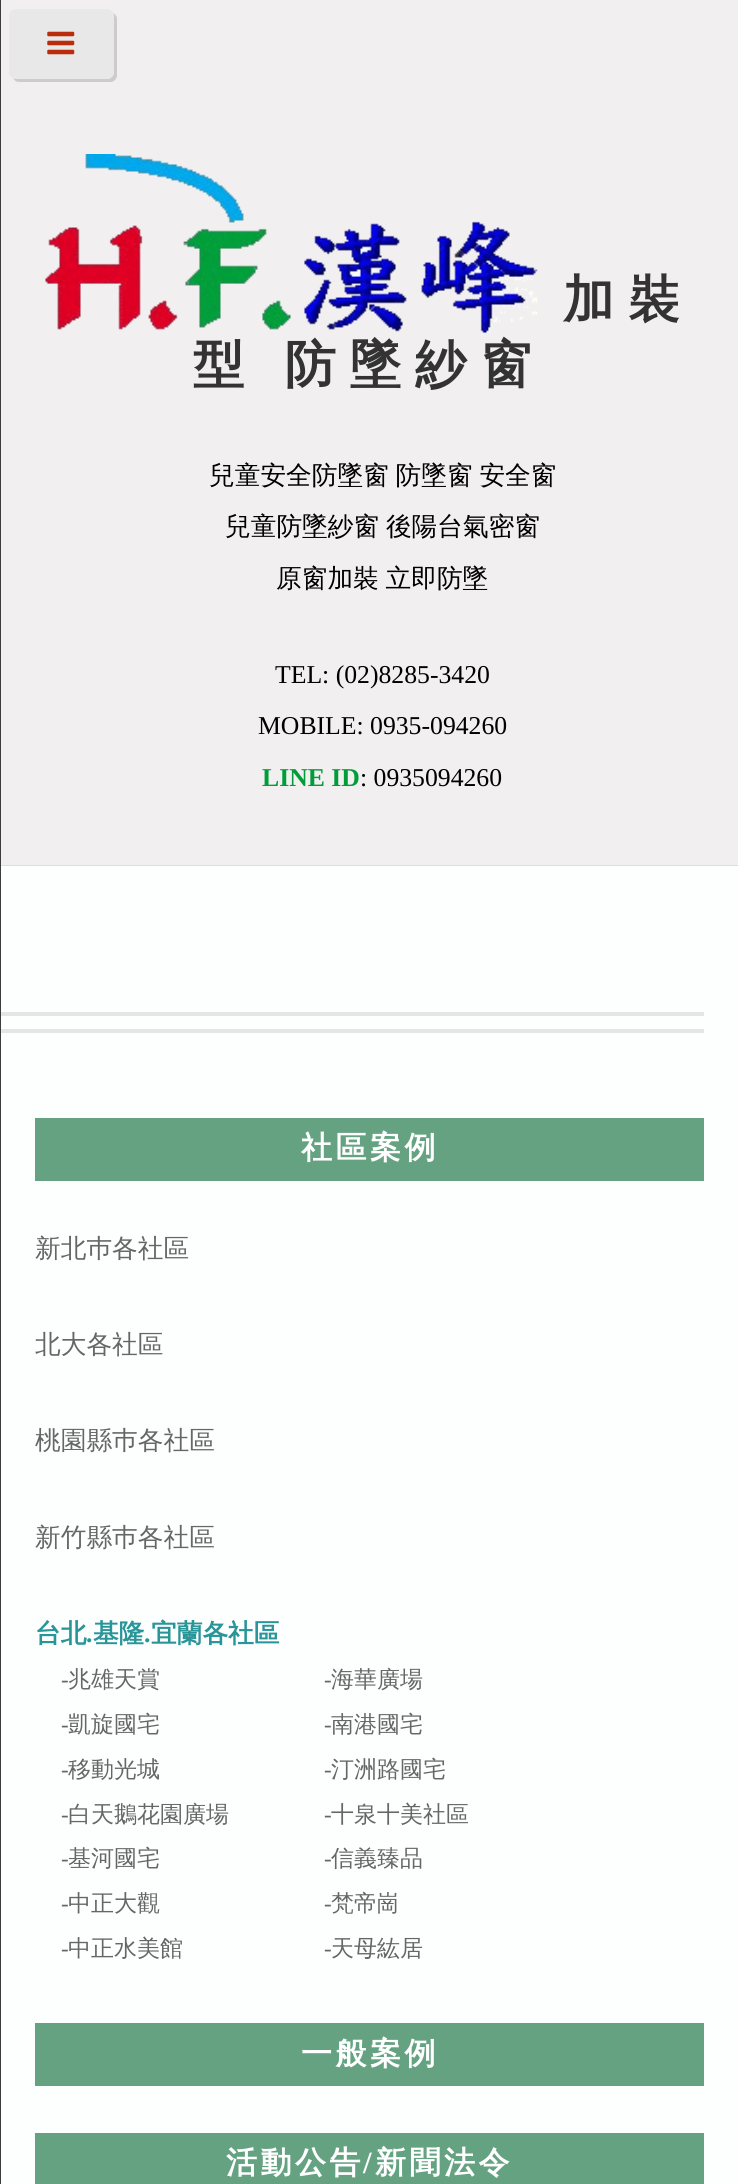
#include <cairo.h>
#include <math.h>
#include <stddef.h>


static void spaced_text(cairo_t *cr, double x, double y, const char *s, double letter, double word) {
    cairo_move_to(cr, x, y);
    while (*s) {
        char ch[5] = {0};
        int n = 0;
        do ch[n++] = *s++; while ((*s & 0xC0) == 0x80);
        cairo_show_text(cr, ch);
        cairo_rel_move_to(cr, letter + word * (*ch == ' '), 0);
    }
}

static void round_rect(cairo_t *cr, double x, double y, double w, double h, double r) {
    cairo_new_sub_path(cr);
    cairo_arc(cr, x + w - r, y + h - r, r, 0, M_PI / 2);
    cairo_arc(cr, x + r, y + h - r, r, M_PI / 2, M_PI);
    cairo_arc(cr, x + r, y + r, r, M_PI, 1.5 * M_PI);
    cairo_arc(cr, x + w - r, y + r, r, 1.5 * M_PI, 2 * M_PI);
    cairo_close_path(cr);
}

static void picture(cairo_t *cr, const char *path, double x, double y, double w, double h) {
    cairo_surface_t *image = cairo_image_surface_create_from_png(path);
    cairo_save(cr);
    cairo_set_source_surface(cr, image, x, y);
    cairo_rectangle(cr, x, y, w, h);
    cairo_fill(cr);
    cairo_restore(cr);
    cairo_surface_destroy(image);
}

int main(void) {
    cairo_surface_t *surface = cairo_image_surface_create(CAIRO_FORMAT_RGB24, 738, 2184);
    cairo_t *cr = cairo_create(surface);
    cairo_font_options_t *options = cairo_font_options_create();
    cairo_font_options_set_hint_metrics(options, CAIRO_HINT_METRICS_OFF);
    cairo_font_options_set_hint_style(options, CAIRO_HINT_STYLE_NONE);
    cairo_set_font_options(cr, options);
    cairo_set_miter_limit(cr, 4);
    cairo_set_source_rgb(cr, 0.945, 0.937, 0.941);
    cairo_paint(cr);
    cairo_set_source_rgb(cr, 0.867, 0.867, 0.867);
    cairo_rectangle(cr, 0, 865, 738, 1);
    cairo_fill(cr);
    cairo_set_source_rgb(cr, 0.992, 0.996, 0.996);
    cairo_rectangle(cr, 1, 866, 737, 1318);
    cairo_fill(cr);
    cairo_set_source_rgb(cr, 0.898, 0.898, 0.898);
    cairo_rectangle(cr, 0, 1012, 704, 4);
    cairo_fill(cr);
    cairo_set_source_rgb(cr, 0.235, 0.235, 0.235);
    cairo_rectangle(cr, 0, 0, 1, 2184);
    cairo_fill(cr);
    cairo_set_source_rgb(cr, 0.804, 0.796, 0.8);
    cairo_new_path(cr);
    cairo_move_to(cr, 13, 78);
    cairo_curve_to(cr, 14, 80, 16, 82, 19, 82);
    cairo_line_to(cr, 110, 82);
    cairo_curve_to(cr, 114, 82, 117, 79, 117, 75);
    cairo_line_to(cr, 117, 19);
    cairo_curve_to(cr, 117, 16, 115, 14, 113, 13);
    cairo_line_to(cr, 114, 16);
    cairo_line_to(cr, 114, 72);
    cairo_curve_to(cr, 114, 76, 111, 79, 107, 79);
    cairo_line_to(cr, 16, 79);
    cairo_close_path(cr);
    cairo_fill(cr);
    cairo_set_source_rgba(cr, 0.91, 0.91, 0.91, 0.9);
    round_rect(cr, 9, 9, 105, 70, 7);
    cairo_fill(cr);
    picture(cr, "img1.png", 47, 31, 28, 24);
    picture(cr, "img2.png", 45, 154, 493, 179);
    cairo_select_font_face(cr, "WenQuanYi Zen Hei", CAIRO_FONT_SLANT_NORMAL, CAIRO_FONT_WEIGHT_BOLD);
    cairo_set_font_size(cr, 51.25);
    cairo_set_source_rgb(cr, 0.2, 0.2, 0.2);
    spaced_text(cr, 563, 317, "加裝", 14, 0);
    spaced_text(cr, 193, 382, "型 防墜紗窗", 14, -3);
    cairo_select_font_face(cr, "WenQuanYi Zen Hei Medium", CAIRO_FONT_SLANT_NORMAL, CAIRO_FONT_WEIGHT_NORMAL);
    cairo_set_font_size(cr, 25.7);
    cairo_set_source_rgb(cr, 0, 0, 0);
    spaced_text(cr, 209, 484, "兒童安全防墜窗 防墜窗 安全窗", 0, -1);
    spaced_text(cr, 225, 535, "兒童防墜紗窗 後陽台氣密窗", 0, -1);
    spaced_text(cr, 276, 587, "原窗加裝 立即防墜", 0, -1);
    cairo_select_font_face(cr, "Liberation Serif", CAIRO_FONT_SLANT_NORMAL, CAIRO_FONT_WEIGHT_NORMAL);
    cairo_move_to(cr, 275, 683);
    cairo_show_text(cr, "TEL: (02)8285-3420");
    cairo_move_to(cr, 258, 734);
    cairo_show_text(cr, "MOBILE: 0935-094260");
    cairo_select_font_face(cr, "Liberation Serif", CAIRO_FONT_SLANT_NORMAL, CAIRO_FONT_WEIGHT_BOLD);
    cairo_set_source_rgb(cr, 0.004, 0.616, 0.224);
    cairo_move_to(cr, 262, 786);
    cairo_show_text(cr, "LINE ID");
    cairo_select_font_face(cr, "Liberation Serif", CAIRO_FONT_SLANT_NORMAL, CAIRO_FONT_WEIGHT_NORMAL);
    cairo_set_source_rgb(cr, 0, 0, 0);
    cairo_move_to(cr, 360, 786);
    cairo_show_text(cr, ": 0935094260");
    cairo_set_source_rgb(cr, 0.898, 0.898, 0.898);
    cairo_rectangle(cr, 1, 1029, 703, 4);
    cairo_fill(cr);
    cairo_set_source_rgb(cr, 0.392, 0.635, 0.506);
    cairo_rectangle(cr, 35, 1118, 669, 63);
    cairo_fill(cr);
    cairo_select_font_face(cr, "WenQuanYi Zen Hei", CAIRO_FONT_SLANT_NORMAL, CAIRO_FONT_WEIGHT_BOLD);
    cairo_set_font_size(cr, 31);
    cairo_set_source_rgb(cr, 1, 1, 1);
    spaced_text(cr, 301, 1158, "社區案例", 3.5, 0);
    cairo_select_font_face(cr, "WenQuanYi Zen Hei Medium", CAIRO_FONT_SLANT_NORMAL, CAIRO_FONT_WEIGHT_NORMAL);
    cairo_set_font_size(cr, 25.7);
    cairo_set_source_rgb(cr, 0.4, 0.4, 0.4);
    cairo_move_to(cr, 35, 1257);
    cairo_show_text(cr, "新北巿各社區");
    cairo_move_to(cr, 35, 1353);
    cairo_show_text(cr, "北大各社區");
    cairo_move_to(cr, 35, 1449);
    cairo_show_text(cr, "桃園縣巿各社區");
    cairo_move_to(cr, 35, 1546);
    cairo_show_text(cr, "新竹縣巿各社區");
    cairo_select_font_face(cr, "WenQuanYi Zen Hei", CAIRO_FONT_SLANT_NORMAL, CAIRO_FONT_WEIGHT_BOLD);
    cairo_set_source_rgb(cr, 0.157, 0.584, 0.6);
    cairo_move_to(cr, 35, 1642);
    cairo_show_text(cr, "台北");
    cairo_select_font_face(cr, "Liberation Serif", CAIRO_FONT_SLANT_NORMAL, CAIRO_FONT_WEIGHT_BOLD);
    cairo_move_to(cr, 86, 1642);
    cairo_show_text(cr, ".");
    cairo_select_font_face(cr, "WenQuanYi Zen Hei", CAIRO_FONT_SLANT_NORMAL, CAIRO_FONT_WEIGHT_BOLD);
    cairo_move_to(cr, 93, 1642);
    cairo_show_text(cr, "基隆");
    cairo_select_font_face(cr, "Liberation Serif", CAIRO_FONT_SLANT_NORMAL, CAIRO_FONT_WEIGHT_BOLD);
    cairo_move_to(cr, 144, 1642);
    cairo_show_text(cr, ".");
    cairo_select_font_face(cr, "WenQuanYi Zen Hei", CAIRO_FONT_SLANT_NORMAL, CAIRO_FONT_WEIGHT_BOLD);
    cairo_move_to(cr, 151, 1642);
    cairo_show_text(cr, "宜蘭各社區");
    cairo_select_font_face(cr, "Liberation Serif", CAIRO_FONT_SLANT_NORMAL, CAIRO_FONT_WEIGHT_NORMAL);
    cairo_set_font_size(cr, 23);
    cairo_set_source_rgb(cr, 0.4, 0.4, 0.4);
    cairo_move_to(cr, 61, 1687);
    cairo_show_text(cr, "-");
    cairo_select_font_face(cr, "WenQuanYi Zen Hei Medium", CAIRO_FONT_SLANT_NORMAL, CAIRO_FONT_WEIGHT_NORMAL);
    cairo_move_to(cr, 68, 1687);
    cairo_show_text(cr, "兆雄天賞");
    cairo_select_font_face(cr, "Liberation Serif", CAIRO_FONT_SLANT_NORMAL, CAIRO_FONT_WEIGHT_NORMAL);
    cairo_move_to(cr, 324, 1687);
    cairo_show_text(cr, "-");
    cairo_select_font_face(cr, "WenQuanYi Zen Hei Medium", CAIRO_FONT_SLANT_NORMAL, CAIRO_FONT_WEIGHT_NORMAL);
    cairo_move_to(cr, 331, 1687);
    cairo_show_text(cr, "海華廣場");
    cairo_select_font_face(cr, "Liberation Serif", CAIRO_FONT_SLANT_NORMAL, CAIRO_FONT_WEIGHT_NORMAL);
    cairo_move_to(cr, 61, 1732);
    cairo_show_text(cr, "-");
    cairo_select_font_face(cr, "WenQuanYi Zen Hei Medium", CAIRO_FONT_SLANT_NORMAL, CAIRO_FONT_WEIGHT_NORMAL);
    cairo_move_to(cr, 68, 1732);
    cairo_show_text(cr, "凱旋國宅");
    cairo_select_font_face(cr, "Liberation Serif", CAIRO_FONT_SLANT_NORMAL, CAIRO_FONT_WEIGHT_NORMAL);
    cairo_move_to(cr, 324, 1732);
    cairo_show_text(cr, "-");
    cairo_select_font_face(cr, "WenQuanYi Zen Hei Medium", CAIRO_FONT_SLANT_NORMAL, CAIRO_FONT_WEIGHT_NORMAL);
    cairo_move_to(cr, 331, 1732);
    cairo_show_text(cr, "南港國宅");
    cairo_select_font_face(cr, "Liberation Serif", CAIRO_FONT_SLANT_NORMAL, CAIRO_FONT_WEIGHT_NORMAL);
    cairo_move_to(cr, 61, 1777);
    cairo_show_text(cr, "-");
    cairo_select_font_face(cr, "WenQuanYi Zen Hei Medium", CAIRO_FONT_SLANT_NORMAL, CAIRO_FONT_WEIGHT_NORMAL);
    cairo_move_to(cr, 68, 1777);
    cairo_show_text(cr, "移動光城");
    cairo_select_font_face(cr, "Liberation Serif", CAIRO_FONT_SLANT_NORMAL, CAIRO_FONT_WEIGHT_NORMAL);
    cairo_move_to(cr, 324, 1777);
    cairo_show_text(cr, "-");
    cairo_select_font_face(cr, "WenQuanYi Zen Hei Medium", CAIRO_FONT_SLANT_NORMAL, CAIRO_FONT_WEIGHT_NORMAL);
    cairo_move_to(cr, 331, 1777);
    cairo_show_text(cr, "汀洲路國宅");
    cairo_select_font_face(cr, "Liberation Serif", CAIRO_FONT_SLANT_NORMAL, CAIRO_FONT_WEIGHT_NORMAL);
    cairo_move_to(cr, 61, 1822);
    cairo_show_text(cr, "-");
    cairo_select_font_face(cr, "WenQuanYi Zen Hei Medium", CAIRO_FONT_SLANT_NORMAL, CAIRO_FONT_WEIGHT_NORMAL);
    cairo_move_to(cr, 68, 1822);
    cairo_show_text(cr, "白天鵝花園廣場");
    cairo_select_font_face(cr, "Liberation Serif", CAIRO_FONT_SLANT_NORMAL, CAIRO_FONT_WEIGHT_NORMAL);
    cairo_move_to(cr, 324, 1822);
    cairo_show_text(cr, "-");
    cairo_select_font_face(cr, "WenQuanYi Zen Hei Medium", CAIRO_FONT_SLANT_NORMAL, CAIRO_FONT_WEIGHT_NORMAL);
    cairo_move_to(cr, 331, 1822);
    cairo_show_text(cr, "十泉十美社區");
    cairo_select_font_face(cr, "Liberation Serif", CAIRO_FONT_SLANT_NORMAL, CAIRO_FONT_WEIGHT_NORMAL);
    cairo_move_to(cr, 61, 1866);
    cairo_show_text(cr, "-");
    cairo_select_font_face(cr, "WenQuanYi Zen Hei Medium", CAIRO_FONT_SLANT_NORMAL, CAIRO_FONT_WEIGHT_NORMAL);
    cairo_move_to(cr, 68, 1866);
    cairo_show_text(cr, "基河國宅");
    cairo_select_font_face(cr, "Liberation Serif", CAIRO_FONT_SLANT_NORMAL, CAIRO_FONT_WEIGHT_NORMAL);
    cairo_move_to(cr, 324, 1866);
    cairo_show_text(cr, "-");
    cairo_select_font_face(cr, "WenQuanYi Zen Hei Medium", CAIRO_FONT_SLANT_NORMAL, CAIRO_FONT_WEIGHT_NORMAL);
    cairo_move_to(cr, 331, 1866);
    cairo_show_text(cr, "信義臻品");
    cairo_select_font_face(cr, "Liberation Serif", CAIRO_FONT_SLANT_NORMAL, CAIRO_FONT_WEIGHT_NORMAL);
    cairo_move_to(cr, 61, 1911);
    cairo_show_text(cr, "-");
    cairo_select_font_face(cr, "WenQuanYi Zen Hei Medium", CAIRO_FONT_SLANT_NORMAL, CAIRO_FONT_WEIGHT_NORMAL);
    cairo_move_to(cr, 68, 1911);
    cairo_show_text(cr, "中正大觀");
    cairo_select_font_face(cr, "Liberation Serif", CAIRO_FONT_SLANT_NORMAL, CAIRO_FONT_WEIGHT_NORMAL);
    cairo_move_to(cr, 324, 1911);
    cairo_show_text(cr, "-");
    cairo_select_font_face(cr, "WenQuanYi Zen Hei Medium", CAIRO_FONT_SLANT_NORMAL, CAIRO_FONT_WEIGHT_NORMAL);
    cairo_move_to(cr, 331, 1911);
    cairo_show_text(cr, "梵帝崗");
    cairo_select_font_face(cr, "Liberation Serif", CAIRO_FONT_SLANT_NORMAL, CAIRO_FONT_WEIGHT_NORMAL);
    cairo_move_to(cr, 61, 1956);
    cairo_show_text(cr, "-");
    cairo_select_font_face(cr, "WenQuanYi Zen Hei Medium", CAIRO_FONT_SLANT_NORMAL, CAIRO_FONT_WEIGHT_NORMAL);
    cairo_move_to(cr, 68, 1956);
    cairo_show_text(cr, "中正水美館");
    cairo_select_font_face(cr, "Liberation Serif", CAIRO_FONT_SLANT_NORMAL, CAIRO_FONT_WEIGHT_NORMAL);
    cairo_move_to(cr, 324, 1956);
    cairo_show_text(cr, "-");
    cairo_select_font_face(cr, "WenQuanYi Zen Hei Medium", CAIRO_FONT_SLANT_NORMAL, CAIRO_FONT_WEIGHT_NORMAL);
    cairo_move_to(cr, 331, 1956);
    cairo_show_text(cr, "天母紘居");
    cairo_set_source_rgb(cr, 0.392, 0.635, 0.506);
    cairo_rectangle(cr, 35, 2023, 669, 63);
    cairo_fill(cr);
    cairo_select_font_face(cr, "WenQuanYi Zen Hei", CAIRO_FONT_SLANT_NORMAL, CAIRO_FONT_WEIGHT_BOLD);
    cairo_set_font_size(cr, 31);
    cairo_set_source_rgb(cr, 1, 1, 1);
    spaced_text(cr, 301, 2064, "一般案例", 3.5, 0);
    cairo_set_source_rgb(cr, 0.392, 0.635, 0.506);
    cairo_rectangle(cr, 35, 2133, 669, 51);
    cairo_fill(cr);
    cairo_set_source_rgb(cr, 1, 1, 1);
    spaced_text(cr, 226, 2173, "活動公告", 3.5, 0);
    cairo_select_font_face(cr, "Liberation Serif", CAIRO_FONT_SLANT_NORMAL, CAIRO_FONT_WEIGHT_BOLD);
    spaced_text(cr, 363, 2173, "/", 3.5, 0);
    cairo_select_font_face(cr, "WenQuanYi Zen Hei", CAIRO_FONT_SLANT_NORMAL, CAIRO_FONT_WEIGHT_BOLD);
    spaced_text(cr, 375, 2173, "新聞法令", 3.5, 0);
    cairo_surface_write_to_png(surface, "page.png");
    cairo_font_options_destroy(options);
    cairo_destroy(cr);
    cairo_surface_destroy(surface);
    return 0;
}
